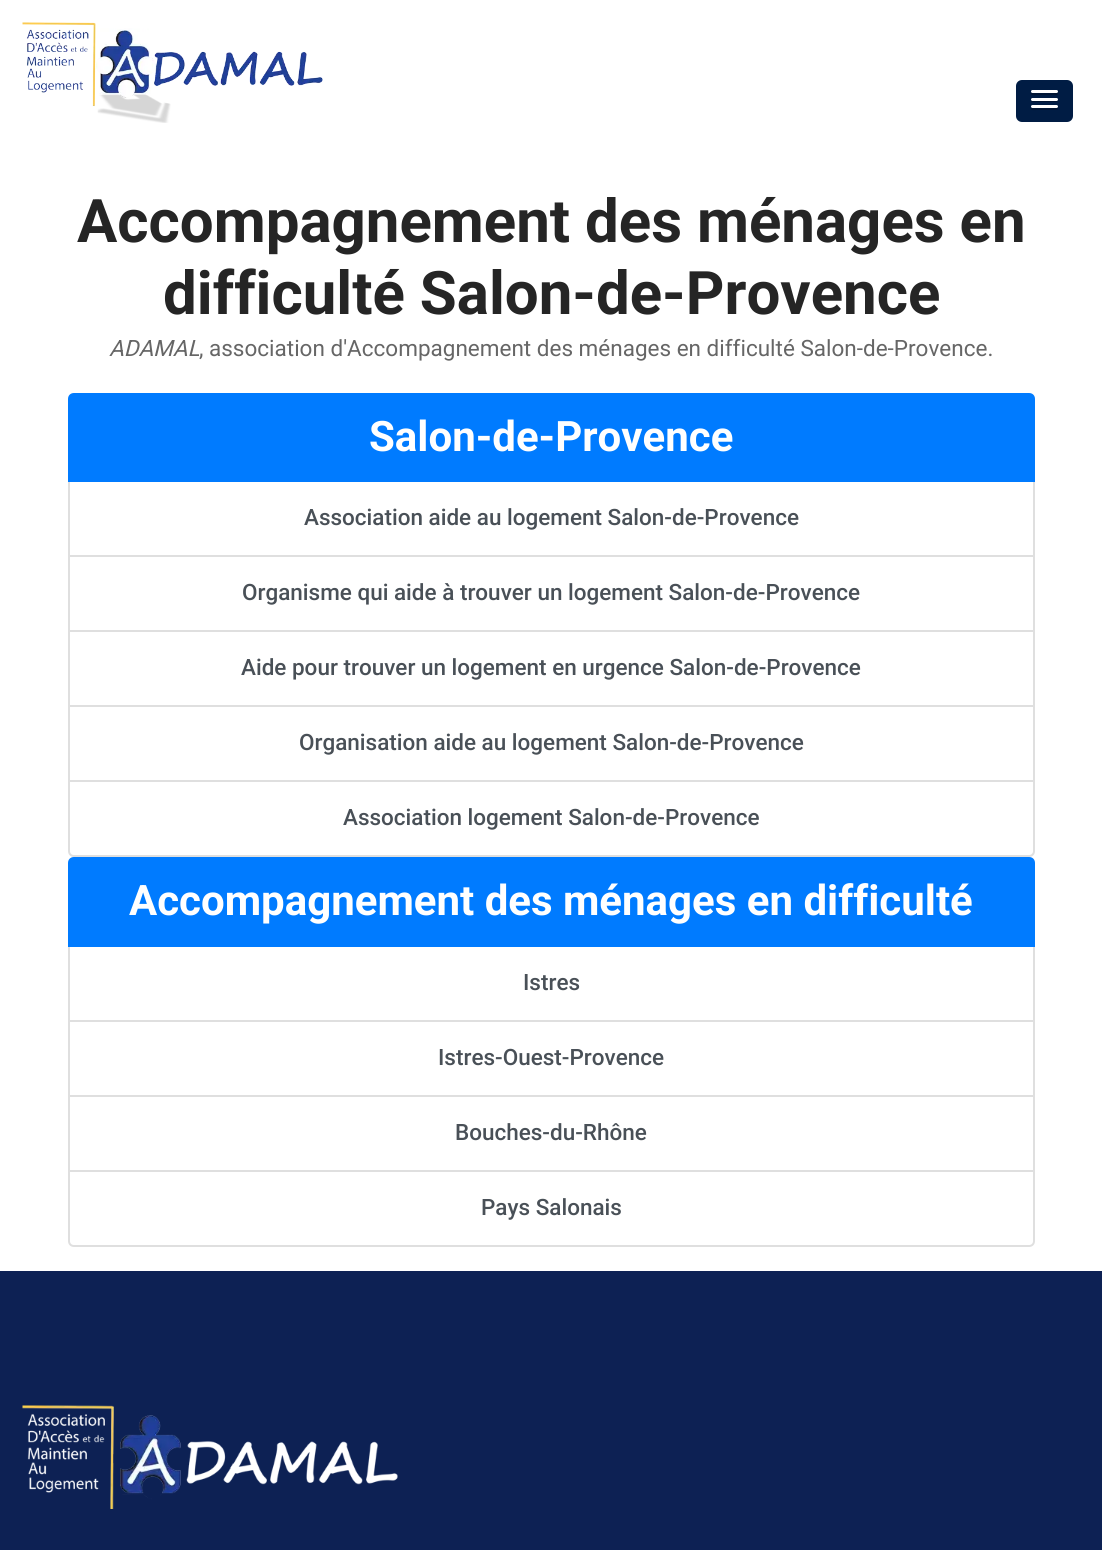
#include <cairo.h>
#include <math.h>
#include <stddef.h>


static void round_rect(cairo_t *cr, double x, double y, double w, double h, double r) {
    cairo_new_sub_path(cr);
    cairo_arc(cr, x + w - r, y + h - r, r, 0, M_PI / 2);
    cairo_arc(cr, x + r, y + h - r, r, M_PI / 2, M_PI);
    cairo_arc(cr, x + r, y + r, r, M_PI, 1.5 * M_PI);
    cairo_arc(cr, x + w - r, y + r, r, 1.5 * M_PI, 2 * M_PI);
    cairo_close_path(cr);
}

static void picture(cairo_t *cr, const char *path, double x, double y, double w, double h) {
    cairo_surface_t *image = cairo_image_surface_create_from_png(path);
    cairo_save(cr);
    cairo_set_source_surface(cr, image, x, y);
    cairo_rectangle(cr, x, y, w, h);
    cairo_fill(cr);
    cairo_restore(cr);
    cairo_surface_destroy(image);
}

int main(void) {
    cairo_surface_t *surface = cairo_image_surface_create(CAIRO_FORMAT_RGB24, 1102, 1550);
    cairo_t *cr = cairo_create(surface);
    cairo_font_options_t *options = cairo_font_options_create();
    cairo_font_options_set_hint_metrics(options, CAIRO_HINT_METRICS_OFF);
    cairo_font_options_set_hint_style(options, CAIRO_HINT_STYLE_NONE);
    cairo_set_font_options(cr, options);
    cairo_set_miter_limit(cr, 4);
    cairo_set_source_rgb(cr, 1, 1, 1);
    cairo_paint(cr);
    picture(cr, "img1.png", 22, 22, 301, 101);
    cairo_set_source_rgb(cr, 0, 0.11, 0.267);
    round_rect(cr, 1016, 80, 57, 42, 6);
    cairo_fill(cr);
    cairo_set_source_rgb(cr, 0, 0.082, 0.2);
    cairo_new_path(cr);
    cairo_move_to(cr, 1031, 93);
    cairo_curve_to(cr, 1029.5, 96, 1036.5, 95, 1036.5, 95);
    cairo_line_to(cr, 1057, 95);
    cairo_curve_to(cr, 1058, 94.5, 1058.5, 93, 1057.5, 92);
    cairo_line_to(cr, 1056, 93);
    cairo_curve_to(cr, 1054, 93.5, 1032, 93.5, 1031, 93);
    cairo_close_path(cr);
    cairo_fill(cr);
    cairo_set_source_rgb(cr, 1, 1, 1);
    round_rect(cr, 1031, 90, 27, 3, 1.5);
    cairo_fill(cr);
    cairo_set_source_rgb(cr, 0, 0.082, 0.2);
    cairo_new_path(cr);
    cairo_move_to(cr, 1031, 100);
    cairo_curve_to(cr, 1030.5, 103, 1036, 102, 1036.5, 102);
    cairo_line_to(cr, 1056.5, 102);
    cairo_curve_to(cr, 1058, 102, 1058.5, 100, 1057.5, 99.5);
    cairo_line_to(cr, 1056.5, 100.5);
    cairo_curve_to(cr, 1055, 101, 1031.5, 100.5, 1031, 100);
    cairo_close_path(cr);
    cairo_fill(cr);
    cairo_set_source_rgb(cr, 1, 1, 1);
    round_rect(cr, 1031, 98, 27, 3, 1.5);
    cairo_fill(cr);
    cairo_set_source_rgb(cr, 0, 0.082, 0.2);
    cairo_new_path(cr);
    cairo_move_to(cr, 1031, 108);
    cairo_curve_to(cr, 1029.5, 111, 1036.5, 110, 1036.5, 110);
    cairo_line_to(cr, 1057, 110);
    cairo_curve_to(cr, 1058, 109.5, 1058.5, 108, 1057.5, 107);
    cairo_line_to(cr, 1056, 108);
    cairo_curve_to(cr, 1054, 108.5, 1032, 108.5, 1031, 108);
    cairo_close_path(cr);
    cairo_fill(cr);
    cairo_set_source_rgb(cr, 1, 1, 1);
    round_rect(cr, 1031, 105, 27, 3, 1.5);
    cairo_fill(cr);
    cairo_select_font_face(cr, "Roboto", CAIRO_FONT_SLANT_NORMAL, CAIRO_FONT_WEIGHT_BOLD);
    cairo_set_font_size(cr, 60);
    cairo_set_source_rgb(cr, 0.145, 0.145, 0.145);
    cairo_move_to(cr, 77, 242);
    cairo_show_text(cr, "Accompagnement des ménages en");
    cairo_move_to(cr, 163, 314);
    cairo_show_text(cr, "difficulté Salon-de-Provence");
    cairo_select_font_face(cr, "Roboto", CAIRO_FONT_SLANT_ITALIC, CAIRO_FONT_WEIGHT_NORMAL);
    cairo_set_font_size(cr, 22.5);
    cairo_set_source_rgb(cr, 0.4, 0.4, 0.4);
    cairo_move_to(cr, 109, 356);
    cairo_show_text(cr, "ADAMAL");
    cairo_select_font_face(cr, "Roboto", CAIRO_FONT_SLANT_NORMAL, CAIRO_FONT_WEIGHT_NORMAL);
    cairo_move_to(cr, 199, 356);
    cairo_show_text(cr, ", association d'Accompagnement des ménages en difficulté Salon-de-Provence.");
    cairo_rectangle(cr, 69, 481, 965, 75);
    cairo_set_source_rgb(cr, 0.875, 0.875, 0.875);
    cairo_stroke(cr);
    cairo_set_source_rgb(cr, 0, 0.482, 1);
    cairo_new_path(cr);
    cairo_move_to(cr, 74, 394);
    cairo_line_to(cr, 1029, 394);
    cairo_curve_to(cr, 1032, 394, 1034, 396, 1034, 399);
    cairo_line_to(cr, 1034, 481);
    cairo_line_to(cr, 69, 481);
    cairo_line_to(cr, 69, 399);
    cairo_curve_to(cr, 69, 396, 71, 394, 74, 394);
    cairo_close_path(cr);
    cairo_fill_preserve(cr);
    cairo_stroke(cr);
    cairo_select_font_face(cr, "Roboto", CAIRO_FONT_SLANT_NORMAL, CAIRO_FONT_WEIGHT_BOLD);
    cairo_set_font_size(cr, 42);
    cairo_set_source_rgb(cr, 1, 1, 1);
    cairo_move_to(cr, 369, 451);
    cairo_show_text(cr, "Salon-de-Provence");
    cairo_select_font_face(cr, "Roboto Medium", CAIRO_FONT_SLANT_NORMAL, CAIRO_FONT_WEIGHT_NORMAL);
    cairo_set_font_size(cr, 22.5);
    cairo_set_source_rgb(cr, 0.286, 0.314, 0.341);
    cairo_move_to(cr, 304, 525);
    cairo_show_text(cr, "Association aide au logement Salon-de-Provence");
    cairo_rectangle(cr, 69, 556, 965, 75);
    cairo_set_source_rgb(cr, 0.875, 0.875, 0.875);
    cairo_stroke(cr);
    cairo_set_source_rgb(cr, 0.286, 0.314, 0.341);
    cairo_move_to(cr, 242, 600);
    cairo_show_text(cr, "Organisme qui aide à trouver un logement Salon-de-Provence");
    cairo_rectangle(cr, 69, 631, 965, 75);
    cairo_set_source_rgb(cr, 0.875, 0.875, 0.875);
    cairo_stroke(cr);
    cairo_set_source_rgb(cr, 0.286, 0.314, 0.341);
    cairo_move_to(cr, 241, 675);
    cairo_show_text(cr, "Aide pour trouver un logement en urgence Salon-de-Provence");
    cairo_rectangle(cr, 69, 706, 965, 75);
    cairo_set_source_rgb(cr, 0.875, 0.875, 0.875);
    cairo_stroke(cr);
    cairo_set_source_rgb(cr, 0.286, 0.314, 0.341);
    cairo_move_to(cr, 299, 750);
    cairo_show_text(cr, "Organisation aide au logement Salon-de-Provence");
    cairo_set_source_rgb(cr, 1, 1, 1);
    cairo_new_path(cr);
    cairo_move_to(cr, 69, 781);
    cairo_line_to(cr, 1034, 781);
    cairo_line_to(cr, 1034, 851);
    cairo_curve_to(cr, 1034, 854, 1032, 856, 1029, 856);
    cairo_line_to(cr, 74, 856);
    cairo_curve_to(cr, 71, 856, 69, 854, 69, 851);
    cairo_close_path(cr);
    cairo_fill_preserve(cr);
    cairo_set_source_rgb(cr, 0.875, 0.875, 0.875);
    cairo_stroke(cr);
    cairo_set_source_rgb(cr, 0.286, 0.314, 0.341);
    cairo_move_to(cr, 343, 825);
    cairo_show_text(cr, "Association logement Salon-de-Provence");
    cairo_rectangle(cr, 69, 946, 965, 75);
    cairo_set_source_rgb(cr, 0.875, 0.875, 0.875);
    cairo_stroke(cr);
    cairo_set_source_rgb(cr, 0, 0.482, 1);
    cairo_new_path(cr);
    cairo_move_to(cr, 74, 858);
    cairo_line_to(cr, 1029, 858);
    cairo_curve_to(cr, 1032, 858, 1034, 860, 1034, 863);
    cairo_line_to(cr, 1034, 946);
    cairo_line_to(cr, 69, 946);
    cairo_line_to(cr, 69, 863);
    cairo_curve_to(cr, 69, 860, 71, 858, 74, 858);
    cairo_close_path(cr);
    cairo_fill_preserve(cr);
    cairo_stroke(cr);
    cairo_select_font_face(cr, "Roboto", CAIRO_FONT_SLANT_NORMAL, CAIRO_FONT_WEIGHT_BOLD);
    cairo_set_font_size(cr, 42);
    cairo_set_source_rgb(cr, 1, 1, 1);
    cairo_move_to(cr, 129, 915);
    cairo_show_text(cr, "Accompagnement des ménages en difficulté");
    cairo_select_font_face(cr, "Roboto Medium", CAIRO_FONT_SLANT_NORMAL, CAIRO_FONT_WEIGHT_NORMAL);
    cairo_set_font_size(cr, 22.5);
    cairo_set_source_rgb(cr, 0.286, 0.314, 0.341);
    cairo_move_to(cr, 523, 990);
    cairo_show_text(cr, "Istres");
    cairo_rectangle(cr, 69, 1021, 965, 75);
    cairo_set_source_rgb(cr, 0.875, 0.875, 0.875);
    cairo_stroke(cr);
    cairo_set_source_rgb(cr, 0.286, 0.314, 0.341);
    cairo_move_to(cr, 438, 1065);
    cairo_show_text(cr, "Istres-Ouest-Provence");
    cairo_rectangle(cr, 69, 1096, 965, 75);
    cairo_set_source_rgb(cr, 0.875, 0.875, 0.875);
    cairo_stroke(cr);
    cairo_set_source_rgb(cr, 0.286, 0.314, 0.341);
    cairo_move_to(cr, 455, 1140);
    cairo_show_text(cr, "Bouches-du-Rhône");
    cairo_set_source_rgb(cr, 1, 1, 1);
    cairo_new_path(cr);
    cairo_move_to(cr, 69, 1171);
    cairo_line_to(cr, 1034, 1171);
    cairo_line_to(cr, 1034, 1241);
    cairo_curve_to(cr, 1034, 1244, 1032, 1246, 1029, 1246);
    cairo_line_to(cr, 74, 1246);
    cairo_curve_to(cr, 71, 1246, 69, 1244, 69, 1241);
    cairo_close_path(cr);
    cairo_fill_preserve(cr);
    cairo_set_source_rgb(cr, 0.875, 0.875, 0.875);
    cairo_stroke(cr);
    cairo_set_source_rgb(cr, 0.286, 0.314, 0.341);
    cairo_move_to(cr, 481, 1215);
    cairo_show_text(cr, "Pays Salonais");
    cairo_set_source_rgb(cr, 0.051, 0.129, 0.329);
    cairo_rectangle(cr, 0, 1271, 1102, 279);
    cairo_fill(cr);
    picture(cr, "img2.png", 22, 1405, 376, 104);
    cairo_surface_write_to_png(surface, "page.png");
    cairo_font_options_destroy(options);
    cairo_destroy(cr);
    cairo_surface_destroy(surface);
    return 0;
}
